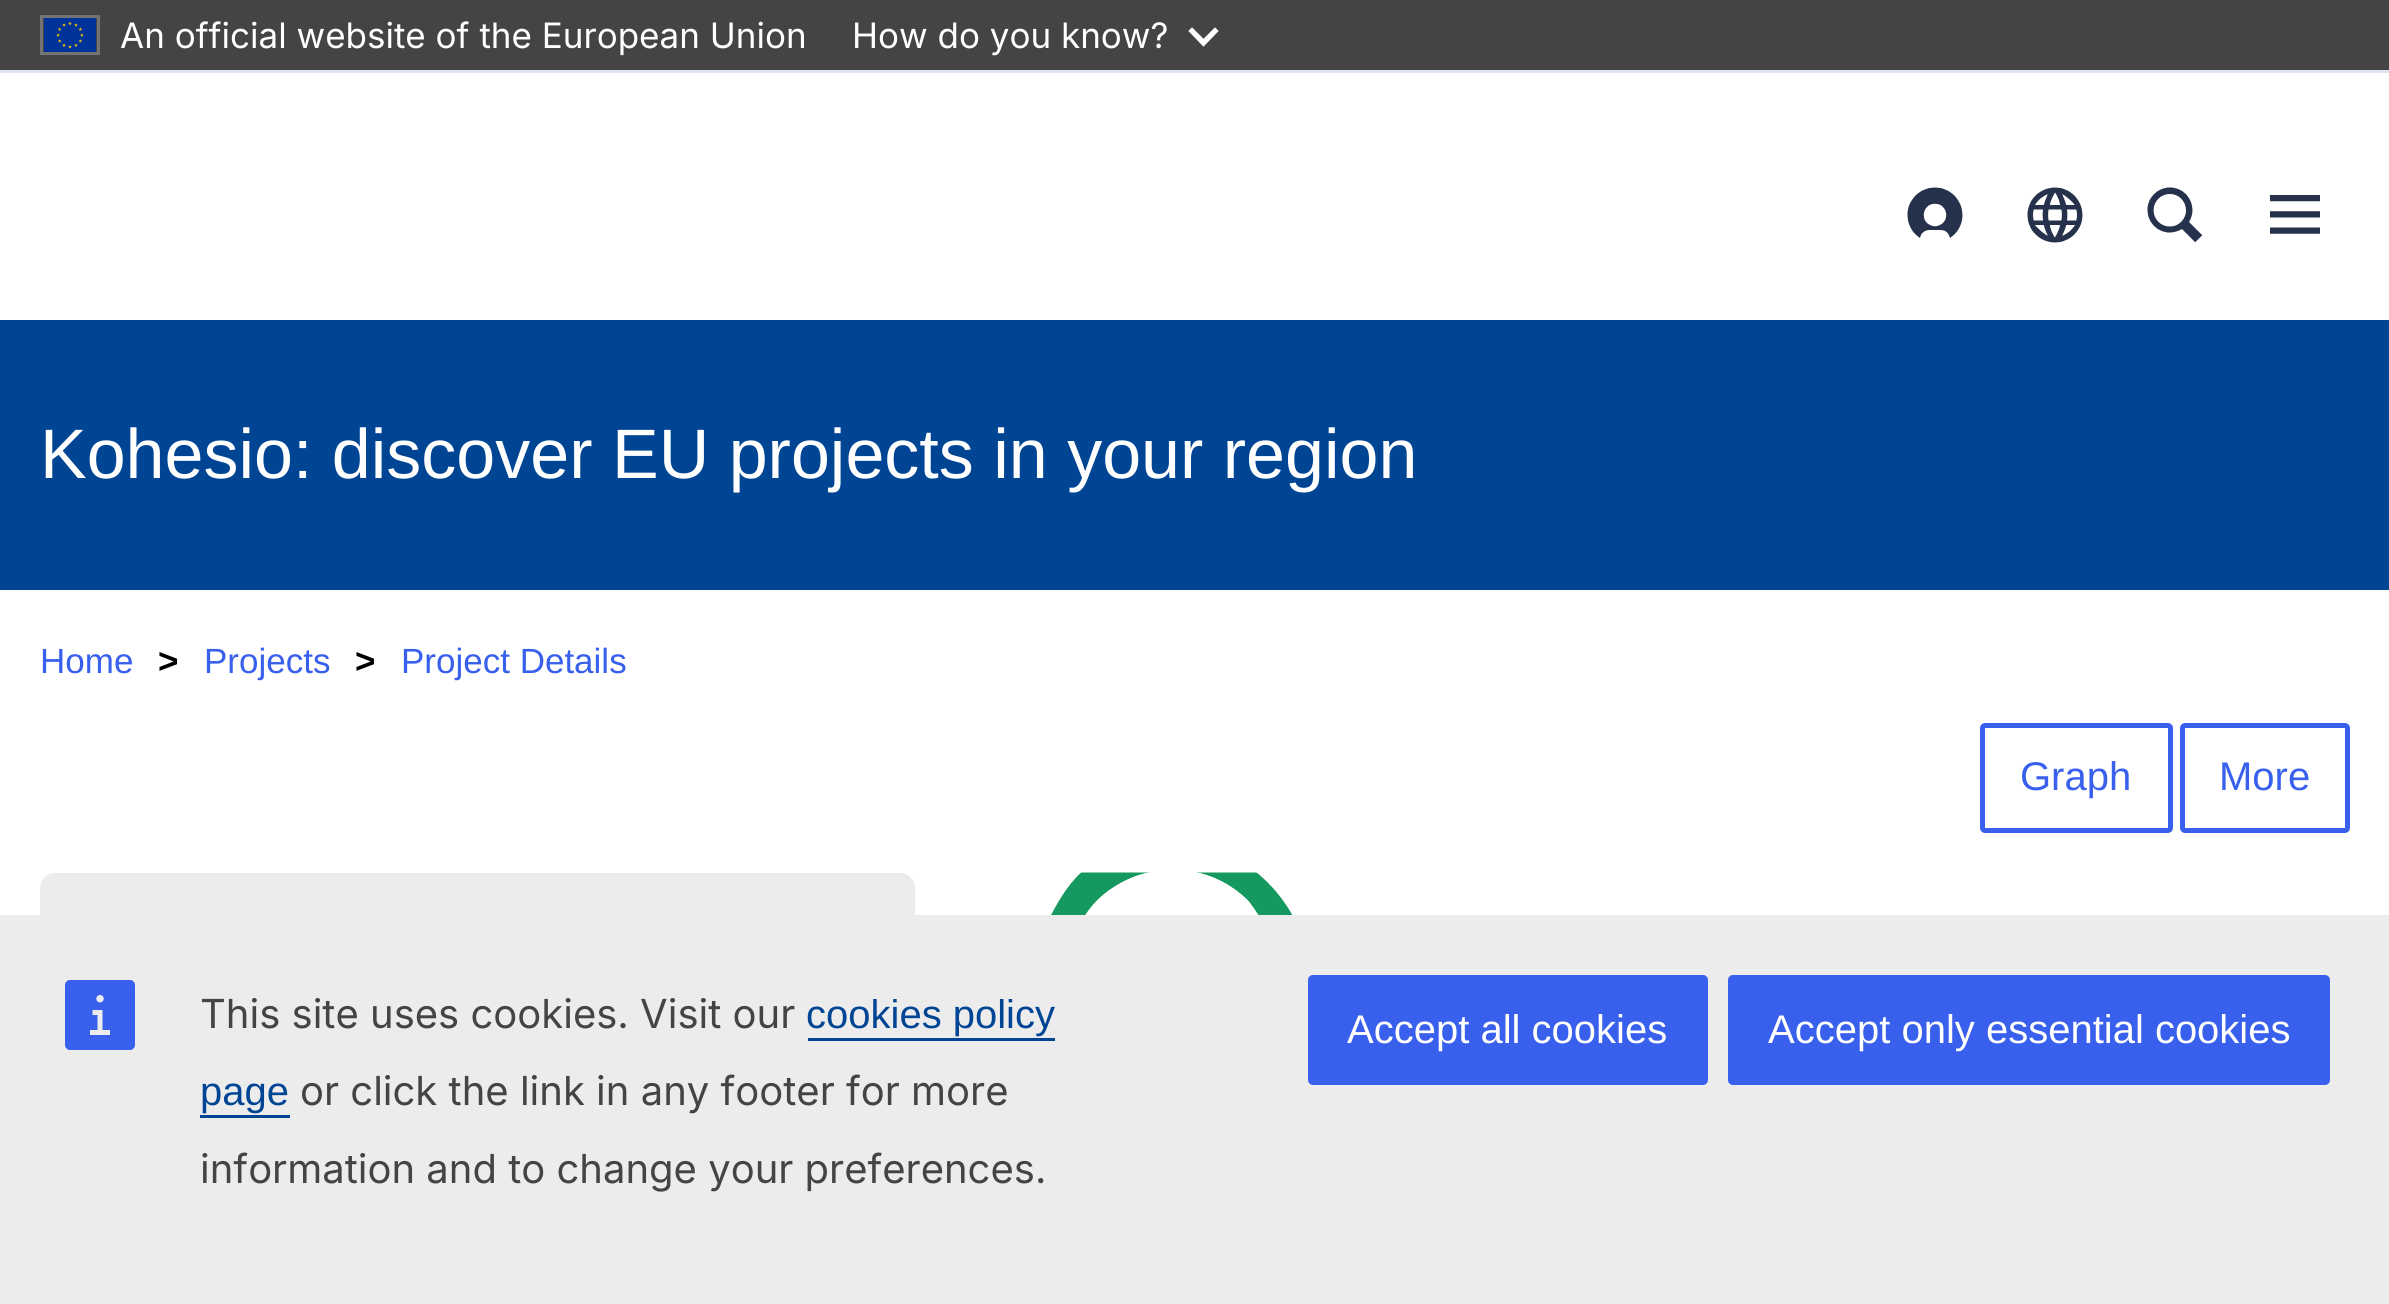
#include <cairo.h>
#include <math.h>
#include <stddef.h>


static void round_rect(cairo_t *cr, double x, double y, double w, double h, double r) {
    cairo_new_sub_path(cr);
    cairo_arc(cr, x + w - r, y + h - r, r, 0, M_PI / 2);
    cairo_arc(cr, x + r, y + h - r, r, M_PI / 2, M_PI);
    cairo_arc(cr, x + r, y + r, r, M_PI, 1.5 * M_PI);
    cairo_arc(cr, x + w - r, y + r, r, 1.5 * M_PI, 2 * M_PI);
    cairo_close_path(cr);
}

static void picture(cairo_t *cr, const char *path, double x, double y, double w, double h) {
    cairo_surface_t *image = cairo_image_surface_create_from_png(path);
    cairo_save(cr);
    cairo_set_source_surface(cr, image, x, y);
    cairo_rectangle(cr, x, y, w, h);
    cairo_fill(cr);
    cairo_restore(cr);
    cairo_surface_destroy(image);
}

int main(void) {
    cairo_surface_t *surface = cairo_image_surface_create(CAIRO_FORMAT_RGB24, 2389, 1304);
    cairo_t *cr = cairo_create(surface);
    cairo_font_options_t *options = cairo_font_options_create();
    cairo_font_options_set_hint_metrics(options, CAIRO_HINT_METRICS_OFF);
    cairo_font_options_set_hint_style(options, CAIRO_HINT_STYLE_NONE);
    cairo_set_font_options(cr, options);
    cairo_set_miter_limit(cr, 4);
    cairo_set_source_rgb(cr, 1, 1, 1);
    cairo_paint(cr);
    cairo_set_source_rgb(cr, 0.267, 0.267, 0.267);
    cairo_rectangle(cr, 0, 0, 2389, 70);
    cairo_fill(cr);
    cairo_rectangle(cr, 41.5, 16.5, 57, 37);
    cairo_set_source_rgb(cr, 0.451, 0.451, 0.451);
    cairo_set_line_width(cr, 3);
    cairo_stroke(cr);
    picture(cr, "img1.png", 44, 18, 52, 34);
    cairo_select_font_face(cr, "Inter", CAIRO_FONT_SLANT_NORMAL, CAIRO_FONT_WEIGHT_NORMAL);
    cairo_set_font_size(cr, 35);
    cairo_set_source_rgb(cr, 1, 1, 1);
    cairo_move_to(cr, 120, 48);
    cairo_show_text(cr, "An official website of the European Union");
    cairo_move_to(cr, 852, 48);
    cairo_show_text(cr, "How do you know?");
    cairo_new_path(cr);
    cairo_move_to(cr, 1190.5, 31);
    cairo_line_to(cr, 1192, 29.5);
    cairo_line_to(cr, 1203.5, 41);
    cairo_line_to(cr, 1215, 29.5);
    cairo_line_to(cr, 1216.5, 31);
    cairo_line_to(cr, 1203.5, 44.5);
    cairo_close_path(cr);
    cairo_set_line_width(cr, 3.1);
    cairo_stroke(cr);
    cairo_set_source_rgb(cr, 0.878, 0.898, 0.961);
    cairo_rectangle(cr, 0, 70, 2389, 3);
    cairo_fill(cr);
    picture(cr, "img2.png", 1907, 187, 56, 51);
    picture(cr, "img3.png", 2027, 187, 56, 56);
    picture(cr, "img4.png", 2147, 187, 56, 56);
    picture(cr, "img5.png", 2270, 195, 50, 39);
    cairo_set_source_rgb(cr, 0, 0.267, 0.58);
    cairo_rectangle(cr, 0, 320, 2389, 270);
    cairo_fill(cr);
    cairo_select_font_face(cr, "Liberation Sans", CAIRO_FONT_SLANT_NORMAL, CAIRO_FONT_WEIGHT_NORMAL);
    cairo_set_font_size(cr, 70);
    cairo_set_source_rgb(cr, 1, 1, 1);
    cairo_move_to(cr, 40, 478);
    cairo_show_text(cr, "Kohesio: discover EU projects in your region");
    cairo_set_font_size(cr, 35);
    cairo_set_source_rgb(cr, 0.22, 0.376, 0.929);
    cairo_move_to(cr, 40, 673);
    cairo_show_text(cr, "Home");
    cairo_select_font_face(cr, "Liberation Sans", CAIRO_FONT_SLANT_NORMAL, CAIRO_FONT_WEIGHT_BOLD);
    cairo_set_source_rgb(cr, 0, 0, 0);
    cairo_move_to(cr, 158, 673);
    cairo_show_text(cr, ">");
    cairo_select_font_face(cr, "Liberation Sans", CAIRO_FONT_SLANT_NORMAL, CAIRO_FONT_WEIGHT_NORMAL);
    cairo_set_source_rgb(cr, 0.22, 0.376, 0.929);
    cairo_move_to(cr, 204, 673);
    cairo_show_text(cr, "Projects");
    cairo_select_font_face(cr, "Liberation Sans", CAIRO_FONT_SLANT_NORMAL, CAIRO_FONT_WEIGHT_BOLD);
    cairo_set_source_rgb(cr, 0, 0, 0);
    cairo_move_to(cr, 355, 673);
    cairo_show_text(cr, ">");
    cairo_select_font_face(cr, "Liberation Sans", CAIRO_FONT_SLANT_NORMAL, CAIRO_FONT_WEIGHT_NORMAL);
    cairo_set_source_rgb(cr, 0.22, 0.376, 0.929);
    cairo_move_to(cr, 401, 673);
    cairo_show_text(cr, "Project Details");
    round_rect(cr, 1982.5, 725.5, 188, 105, 2.5);
    cairo_set_line_width(cr, 5);
    cairo_stroke(cr);
    cairo_set_font_size(cr, 40);
    cairo_move_to(cr, 2020, 790);
    cairo_show_text(cr, "Graph");
    round_rect(cr, 2182.5, 725.5, 165, 105, 2.5);
    cairo_stroke(cr);
    cairo_move_to(cr, 2219, 790);
    cairo_show_text(cr, "More");
    cairo_set_source_rgb(cr, 0.922, 0.922, 0.922);
    round_rect(cr, 40, 873, 875, 235, 15);
    cairo_fill(cr);
    picture(cr, "img6.png", 1051, 872, 242, 43);
    cairo_rectangle(cr, 0, 915, 2389, 389);
    cairo_fill(cr);
    picture(cr, "img7.png", 65, 980, 70, 70);
    cairo_select_font_face(cr, "Inter", CAIRO_FONT_SLANT_NORMAL, CAIRO_FONT_WEIGHT_NORMAL);
    cairo_set_source_rgb(cr, 0.267, 0.267, 0.267);
    cairo_move_to(cr, 200, 1028);
    cairo_show_text(cr, "This site uses cookies. Visit our");
    cairo_select_font_face(cr, "Liberation Sans", CAIRO_FONT_SLANT_NORMAL, CAIRO_FONT_WEIGHT_NORMAL);
    cairo_set_source_rgb(cr, 0, 0.267, 0.58);
    cairo_move_to(cr, 806, 1028);
    cairo_show_text(cr, "cookies policy");
    cairo_rectangle(cr, 808, 1038, 247, 3);
    cairo_fill(cr);
    cairo_move_to(cr, 200, 1105);
    cairo_show_text(cr, "page");
    cairo_rectangle(cr, 200, 1115, 90, 3);
    cairo_fill(cr);
    cairo_select_font_face(cr, "Inter", CAIRO_FONT_SLANT_NORMAL, CAIRO_FONT_WEIGHT_NORMAL);
    cairo_set_source_rgb(cr, 0.267, 0.267, 0.267);
    cairo_move_to(cr, 300, 1105);
    cairo_show_text(cr, "or click the link in any footer for more");
    cairo_move_to(cr, 200, 1183);
    cairo_show_text(cr, "information and to change your preferences.");
    cairo_set_source_rgb(cr, 0.22, 0.376, 0.929);
    round_rect(cr, 1308, 975, 400, 110, 5);
    cairo_fill(cr);
    cairo_select_font_face(cr, "Liberation Sans", CAIRO_FONT_SLANT_NORMAL, CAIRO_FONT_WEIGHT_NORMAL);
    cairo_set_source_rgb(cr, 1, 1, 1);
    cairo_move_to(cr, 1347, 1043);
    cairo_show_text(cr, "Accept all cookies");
    cairo_set_source_rgb(cr, 0.22, 0.376, 0.929);
    round_rect(cr, 1728, 975, 602, 110, 5);
    cairo_fill(cr);
    cairo_set_source_rgb(cr, 1, 1, 1);
    cairo_move_to(cr, 1768, 1043);
    cairo_show_text(cr, "Accept only essential cookies");
    cairo_surface_write_to_png(surface, "page.png");
    cairo_font_options_destroy(options);
    cairo_destroy(cr);
    cairo_surface_destroy(surface);
    return 0;
}
